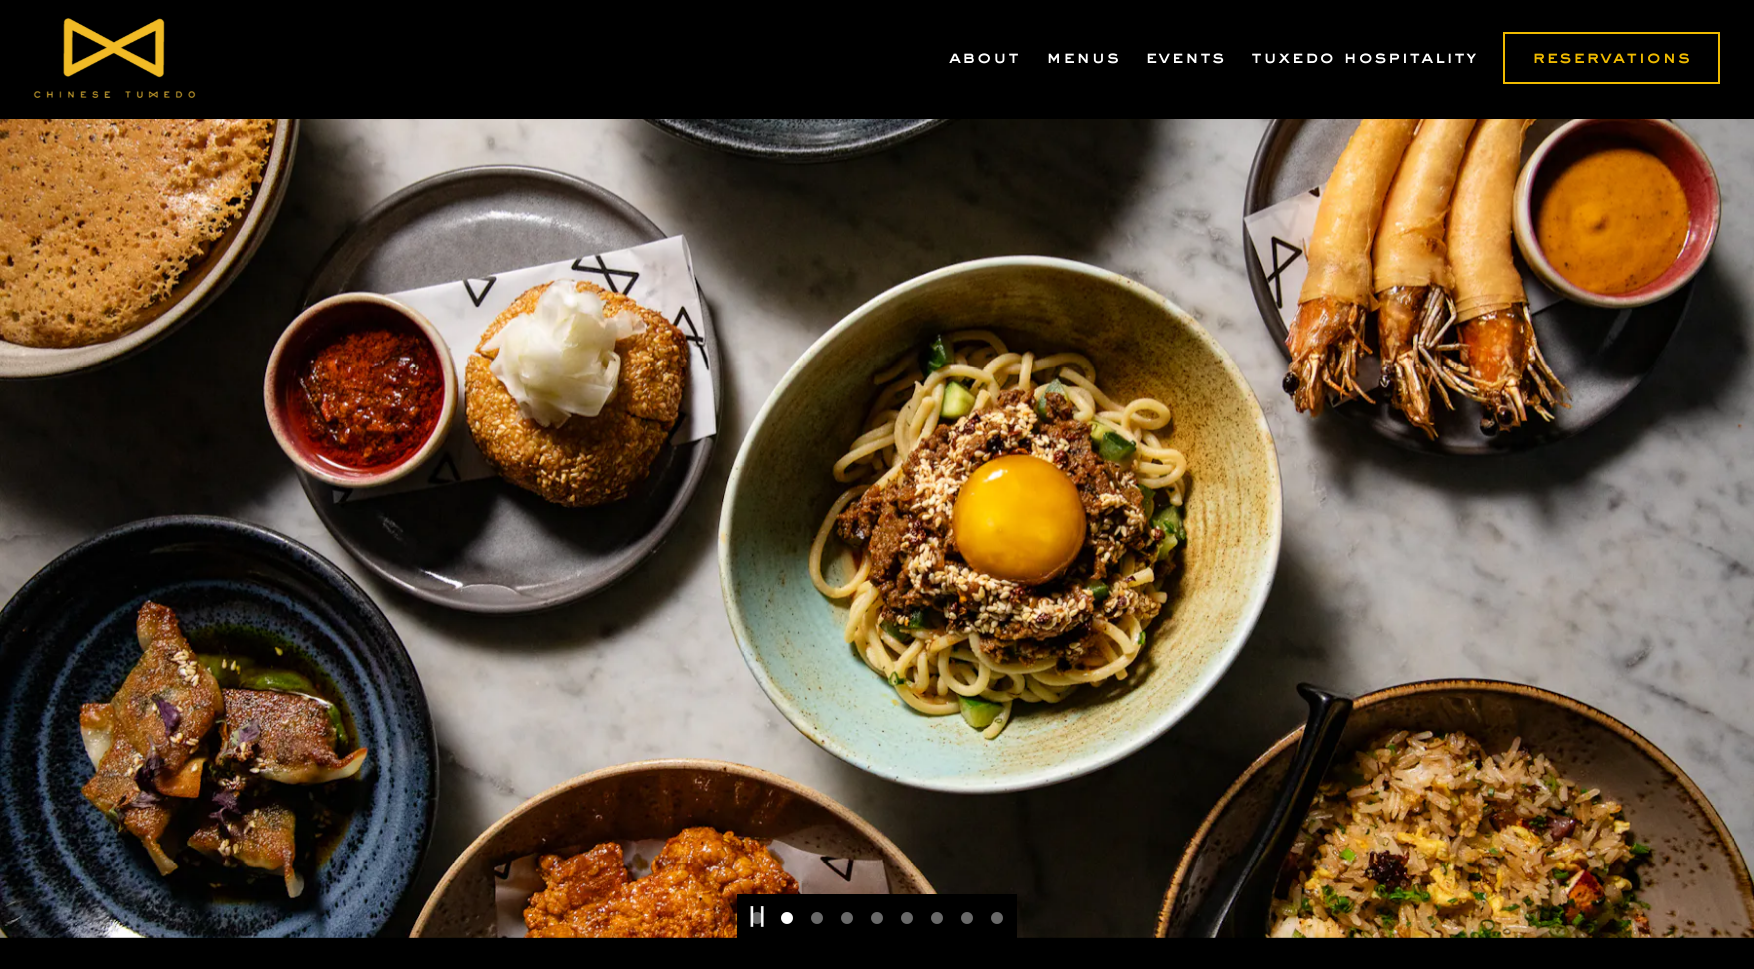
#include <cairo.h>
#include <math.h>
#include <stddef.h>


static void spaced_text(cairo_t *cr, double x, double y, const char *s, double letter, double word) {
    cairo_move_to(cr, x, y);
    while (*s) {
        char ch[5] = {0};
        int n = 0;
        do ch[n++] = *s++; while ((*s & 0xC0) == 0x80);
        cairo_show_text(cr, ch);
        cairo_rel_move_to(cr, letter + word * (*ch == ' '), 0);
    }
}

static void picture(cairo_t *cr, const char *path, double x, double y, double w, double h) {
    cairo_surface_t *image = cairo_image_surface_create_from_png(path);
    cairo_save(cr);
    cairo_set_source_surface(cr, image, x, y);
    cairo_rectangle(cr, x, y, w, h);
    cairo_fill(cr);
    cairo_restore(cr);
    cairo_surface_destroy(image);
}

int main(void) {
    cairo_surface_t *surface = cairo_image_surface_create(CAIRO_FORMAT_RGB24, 1754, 969);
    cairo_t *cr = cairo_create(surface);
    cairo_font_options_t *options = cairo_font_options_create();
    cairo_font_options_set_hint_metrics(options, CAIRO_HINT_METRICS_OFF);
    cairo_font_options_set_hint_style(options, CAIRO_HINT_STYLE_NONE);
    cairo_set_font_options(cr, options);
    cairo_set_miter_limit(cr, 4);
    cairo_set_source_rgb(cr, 0, 0, 0);
    cairo_paint(cr);
    picture(cr, "img1.png", 33, 18, 163, 80);
    cairo_select_font_face(cr, "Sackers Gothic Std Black", CAIRO_FONT_SLANT_NORMAL, CAIRO_FONT_WEIGHT_NORMAL);
    cairo_set_font_size(cr, 18);
    cairo_set_source_rgb(cr, 1, 1, 1);
    spaced_text(cr, 949, 63, "about", 1, 0);
    spaced_text(cr, 1046, 63, "menus", 1, 0);
    spaced_text(cr, 1145, 63, "events", 1, 0);
    spaced_text(cr, 1251, 63, "tuxedo hospitality", 1, 0);
    cairo_rectangle(cr, 1504, 33, 215, 50);
    cairo_set_source_rgb(cr, 0.941, 0.733, 0);
    cairo_stroke(cr);
    spaced_text(cr, 1532, 63, "reservations", 1, 0);
    picture(cr, "img2.png", 0, 119, 1754, 819);
    cairo_set_source_rgb(cr, 0, 0, 0);
    cairo_rectangle(cr, 737, 894, 280, 44);
    cairo_fill(cr);
    picture(cr, "img3.png", 751, 912, 12, 12);
    picture(cr, "img4.png", 781, 912, 12, 12);
    picture(cr, "img3.png", 811, 912, 12, 12);
    picture(cr, "img3.png", 841, 912, 12, 12);
    picture(cr, "img3.png", 871, 912, 12, 12);
    picture(cr, "img3.png", 901, 912, 12, 12);
    picture(cr, "img3.png", 931, 912, 12, 12);
    picture(cr, "img3.png", 961, 912, 12, 12);
    picture(cr, "img3.png", 991, 912, 12, 12);
    picture(cr, "img5.png", 750, 906, 14, 21);
    cairo_surface_write_to_png(surface, "page.png");
    cairo_font_options_destroy(options);
    cairo_destroy(cr);
    cairo_surface_destroy(surface);
    return 0;
}
